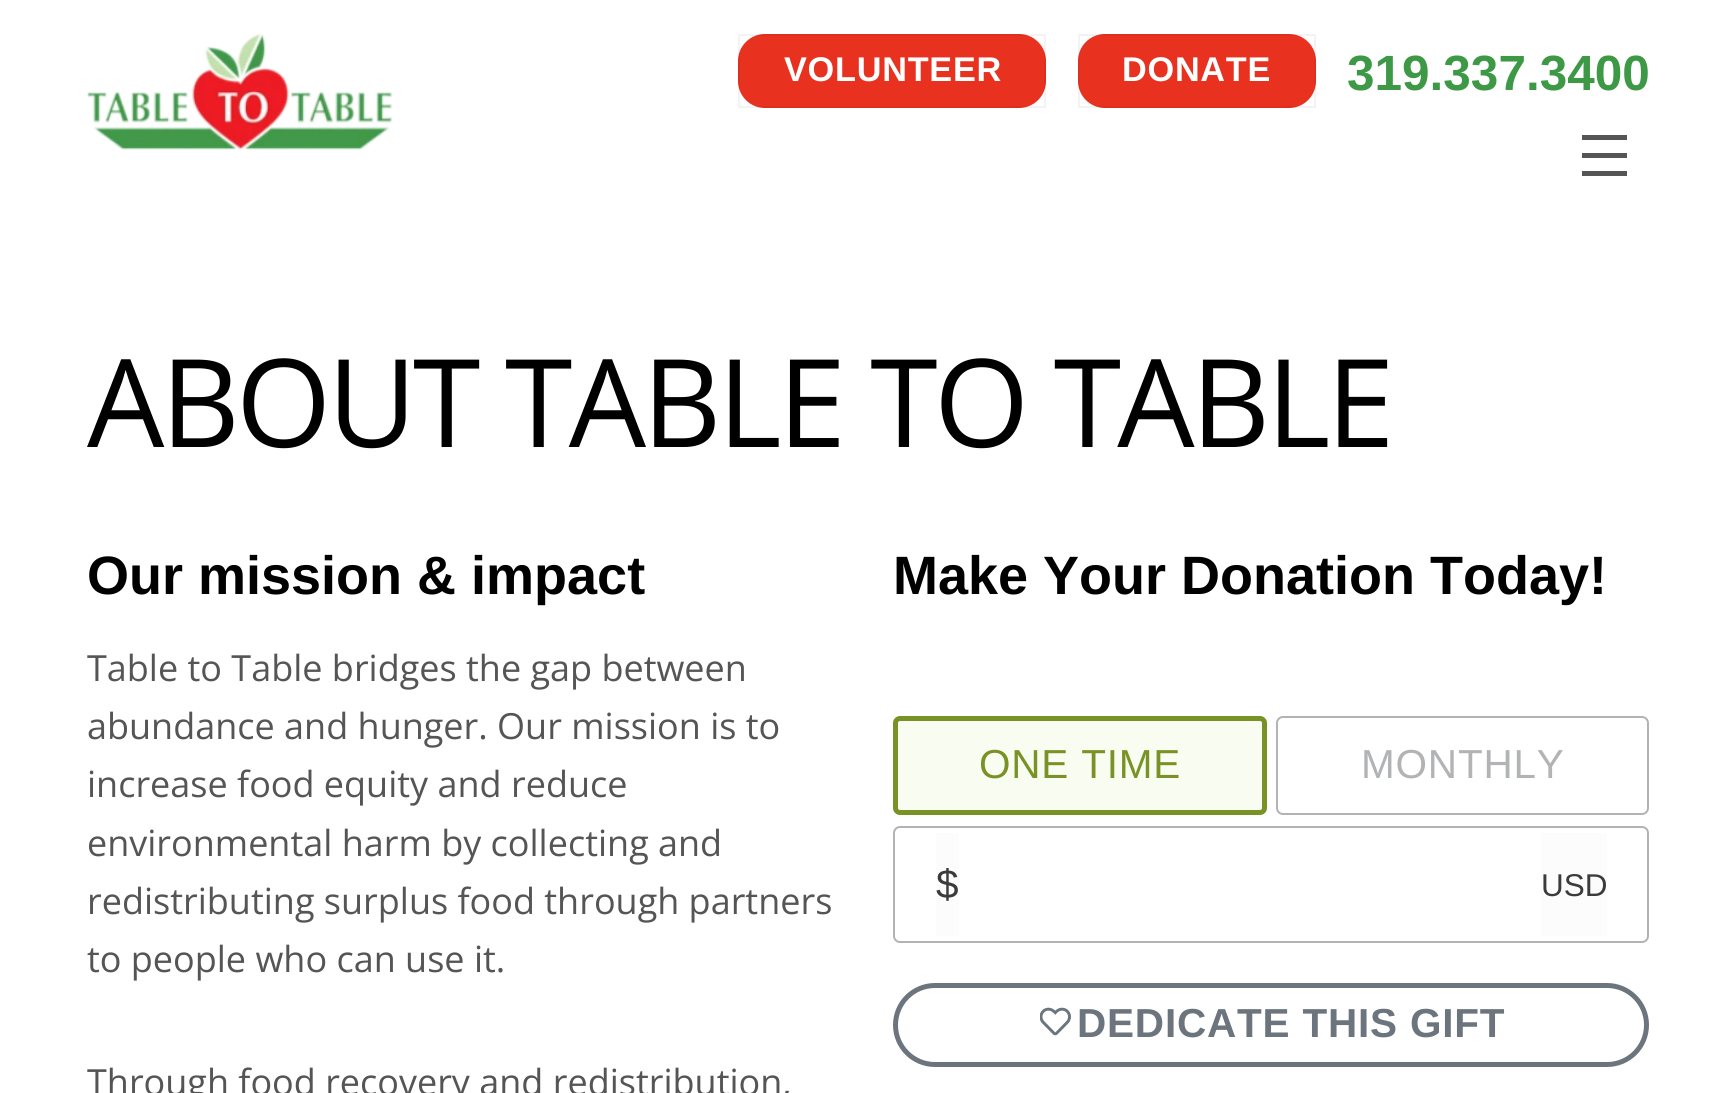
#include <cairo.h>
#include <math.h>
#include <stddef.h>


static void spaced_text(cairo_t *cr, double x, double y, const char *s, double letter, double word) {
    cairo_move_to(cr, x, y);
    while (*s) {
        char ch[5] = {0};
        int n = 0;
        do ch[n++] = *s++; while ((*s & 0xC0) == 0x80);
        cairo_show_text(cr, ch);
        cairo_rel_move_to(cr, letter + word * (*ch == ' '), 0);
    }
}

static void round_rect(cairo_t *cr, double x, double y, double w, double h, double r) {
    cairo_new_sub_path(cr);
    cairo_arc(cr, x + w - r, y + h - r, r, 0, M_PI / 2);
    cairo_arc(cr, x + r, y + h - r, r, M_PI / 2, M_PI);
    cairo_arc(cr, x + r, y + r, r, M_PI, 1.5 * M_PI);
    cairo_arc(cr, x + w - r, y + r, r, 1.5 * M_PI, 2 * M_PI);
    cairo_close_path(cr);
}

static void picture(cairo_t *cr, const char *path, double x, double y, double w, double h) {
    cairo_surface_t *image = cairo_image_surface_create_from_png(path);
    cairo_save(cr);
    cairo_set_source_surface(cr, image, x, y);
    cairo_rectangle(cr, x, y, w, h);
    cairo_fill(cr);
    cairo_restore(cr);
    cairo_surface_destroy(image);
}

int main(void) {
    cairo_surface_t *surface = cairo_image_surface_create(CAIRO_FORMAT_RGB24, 1735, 1093);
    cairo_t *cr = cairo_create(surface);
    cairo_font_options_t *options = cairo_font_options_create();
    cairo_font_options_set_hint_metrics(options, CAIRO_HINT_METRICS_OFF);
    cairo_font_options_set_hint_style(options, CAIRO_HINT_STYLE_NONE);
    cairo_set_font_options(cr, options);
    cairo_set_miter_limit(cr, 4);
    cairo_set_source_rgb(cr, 1, 1, 1);
    cairo_paint(cr);
    picture(cr, "img1.png", 86, 33, 306, 117);
    cairo_set_source_rgb(cr, 0.91, 0.192, 0.122);
    round_rect(cr, 738, 34, 308, 74, 27);
    cairo_fill(cr);
    cairo_rectangle(cr, 739, 35, 306, 72);
    cairo_set_source_rgba(cr, 0, 0, 0, 0.05);
    cairo_stroke(cr);
    cairo_select_font_face(cr, "Liberation Sans", CAIRO_FONT_SLANT_NORMAL, CAIRO_FONT_WEIGHT_BOLD);
    cairo_set_font_size(cr, 34.25);
    cairo_set_source_rgb(cr, 1, 1, 1);
    spaced_text(cr, 784, 81, "VOLUNTEER", 0.75, 0);
    cairo_set_source_rgb(cr, 0.91, 0.192, 0.122);
    round_rect(cr, 1078, 34, 238, 74, 27);
    cairo_fill(cr);
    cairo_rectangle(cr, 1079, 35, 236, 72);
    cairo_set_source_rgba(cr, 0, 0, 0, 0.05);
    cairo_stroke(cr);
    cairo_set_source_rgb(cr, 1, 1, 1);
    spaced_text(cr, 1122, 81, "DONATE", 0.75, 0);
    cairo_set_font_size(cr, 49.5);
    cairo_set_source_rgb(cr, 0.239, 0.6, 0.275);
    cairo_move_to(cr, 1347, 90);
    cairo_show_text(cr, "319.337.3400");
    cairo_set_source_rgb(cr, 0.333, 0.333, 0.333);
    cairo_rectangle(cr, 1582, 171, 45, 5);
    cairo_fill(cr);
    cairo_rectangle(cr, 1582, 135, 45, 5);
    cairo_fill(cr);
    cairo_rectangle(cr, 1582, 153, 45, 5);
    cairo_fill(cr);
    cairo_select_font_face(cr, "Open Sans", CAIRO_FONT_SLANT_NORMAL, CAIRO_FONT_WEIGHT_NORMAL);
    cairo_set_font_size(cr, 122.4);
    cairo_set_source_rgb(cr, 0, 0, 0);
    spaced_text(cr, 87, 447, "ABOUT TABLE TO TABLE", -3.7, 0);
    cairo_select_font_face(cr, "Liberation Sans", CAIRO_FONT_SLANT_NORMAL, CAIRO_FONT_WEIGHT_BOLD);
    cairo_set_font_size(cr, 54);
    cairo_move_to(cr, 87, 594);
    cairo_show_text(cr, "Our mission & impact");
    cairo_select_font_face(cr, "Open Sans", CAIRO_FONT_SLANT_NORMAL, CAIRO_FONT_WEIGHT_NORMAL);
    cairo_set_font_size(cr, 36);
    cairo_set_source_rgb(cr, 0.333, 0.333, 0.333);
    cairo_move_to(cr, 87, 681);
    cairo_show_text(cr, "Table to Table bridges the gap between");
    cairo_move_to(cr, 87, 739);
    cairo_show_text(cr, "abundance and hunger. Our mission is to");
    cairo_move_to(cr, 87, 797);
    cairo_show_text(cr, "increase food equity and reduce");
    cairo_move_to(cr, 87, 856);
    cairo_show_text(cr, "environmental harm by collecting and");
    cairo_move_to(cr, 87, 914);
    cairo_show_text(cr, "redistributing surplus food through partners");
    cairo_move_to(cr, 87, 972);
    cairo_show_text(cr, "to people who can use it.");
    cairo_move_to(cr, 87, 1095);
    cairo_show_text(cr, "Through food recovery and redistribution,");
    cairo_select_font_face(cr, "Liberation Sans", CAIRO_FONT_SLANT_NORMAL, CAIRO_FONT_WEIGHT_BOLD);
    cairo_set_font_size(cr, 54);
    cairo_set_source_rgb(cr, 0, 0, 0);
    cairo_move_to(cr, 893, 594);
    cairo_show_text(cr, "Make Your Donation Today!");
    cairo_set_source_rgb(cr, 0.976, 0.988, 0.945);
    round_rect(cr, 895.5, 718.5, 369, 94, 4.5);
    cairo_fill_preserve(cr);
    cairo_set_source_rgb(cr, 0.475, 0.573, 0.145);
    cairo_set_line_width(cr, 5);
    cairo_stroke(cr);
    cairo_select_font_face(cr, "Liberation Sans", CAIRO_FONT_SLANT_NORMAL, CAIRO_FONT_WEIGHT_NORMAL);
    cairo_set_font_size(cr, 40.5);
    spaced_text(cr, 979, 778, "ONE TIME", 0.8, 0);
    round_rect(cr, 1277, 717, 371, 97, 6);
    cairo_set_source_rgb(cr, 0.698, 0.702, 0.71);
    cairo_set_line_width(cr, 2);
    cairo_stroke(cr);
    spaced_text(cr, 1361, 778, "MONTHLY", 0.8, 0);
    round_rect(cr, 894, 827, 754, 115, 6);
    cairo_stroke(cr);
    cairo_set_source_rgb(cr, 0.988, 0.988, 0.988);
    cairo_rectangle(cr, 936, 833, 23, 103);
    cairo_fill(cr);
    cairo_set_source_rgb(cr, 0.231, 0.231, 0.231);
    cairo_move_to(cr, 936, 898);
    cairo_show_text(cr, "$");
    cairo_set_source_rgb(cr, 0.988, 0.988, 0.988);
    cairo_rectangle(cr, 1541, 833, 66, 103);
    cairo_fill(cr);
    cairo_set_font_size(cr, 31.5);
    cairo_set_source_rgb(cr, 0.231, 0.231, 0.231);
    cairo_move_to(cr, 1541, 896);
    cairo_show_text(cr, "USD");
    round_rect(cr, 895.5, 985.5, 751, 79, 39.5);
    cairo_set_source_rgb(cr, 0.424, 0.459, 0.49);
    cairo_set_line_width(cr, 5);
    cairo_stroke(cr);
    picture(cr, "img2.png", 1040, 1007, 31, 29);
    cairo_select_font_face(cr, "Liberation Sans", CAIRO_FONT_SLANT_NORMAL, CAIRO_FONT_WEIGHT_BOLD);
    cairo_set_font_size(cr, 40.5);
    spaced_text(cr, 1077, 1037, "DEDICATE THIS GIFT", 0.8, 0);
    cairo_surface_write_to_png(surface, "page.png");
    cairo_font_options_destroy(options);
    cairo_destroy(cr);
    cairo_surface_destroy(surface);
    return 0;
}
